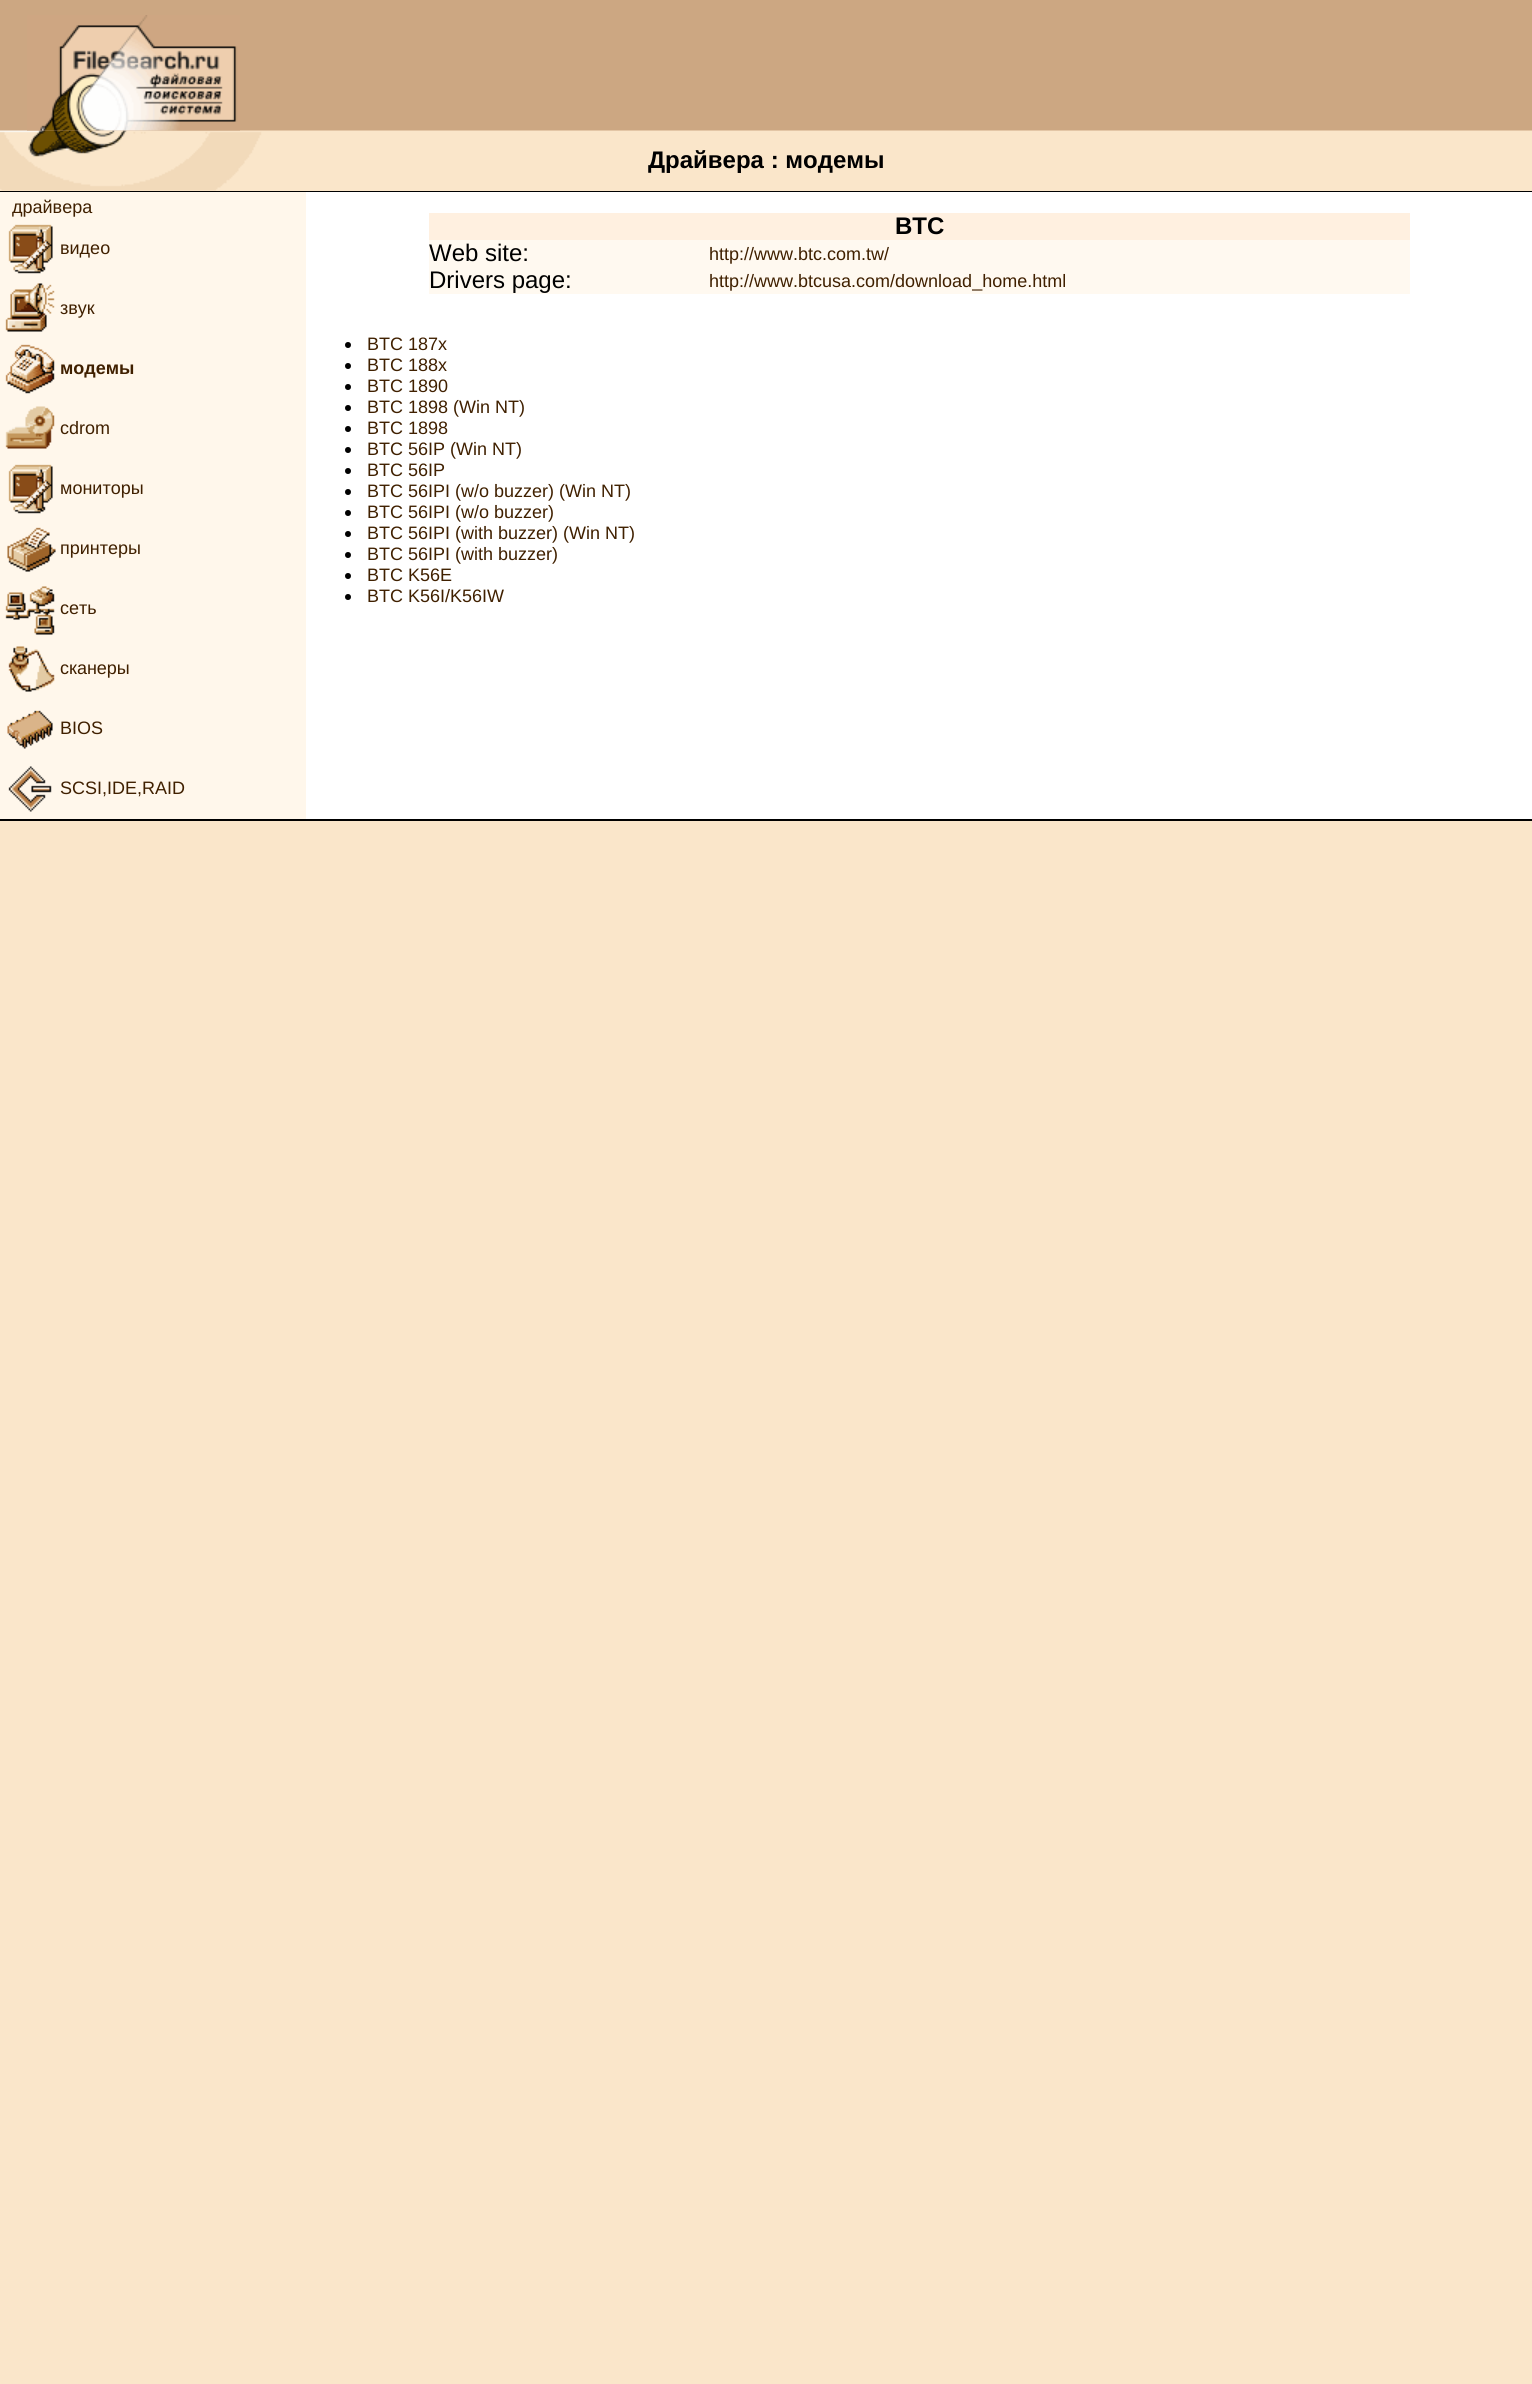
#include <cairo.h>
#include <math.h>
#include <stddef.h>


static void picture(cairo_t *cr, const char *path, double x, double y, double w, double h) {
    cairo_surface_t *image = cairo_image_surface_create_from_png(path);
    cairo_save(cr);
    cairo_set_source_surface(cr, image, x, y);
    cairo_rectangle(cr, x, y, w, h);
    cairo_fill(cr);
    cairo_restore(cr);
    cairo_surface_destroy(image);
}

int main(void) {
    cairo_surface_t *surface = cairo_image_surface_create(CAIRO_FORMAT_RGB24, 1532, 2384);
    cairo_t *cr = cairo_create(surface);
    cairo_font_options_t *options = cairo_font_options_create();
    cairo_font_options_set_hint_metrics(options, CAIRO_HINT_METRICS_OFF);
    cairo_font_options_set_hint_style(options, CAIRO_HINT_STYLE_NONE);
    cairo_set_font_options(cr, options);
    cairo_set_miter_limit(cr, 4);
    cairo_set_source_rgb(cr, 0.98, 0.902, 0.792);
    cairo_paint(cr);
    cairo_set_source_rgb(cr, 0.8, 0.655, 0.51);
    cairo_rectangle(cr, 0, 0, 1532, 131);
    cairo_fill(cr);
    picture(cr, "img2.png", 0, 130, 1532, 61);
    picture(cr, "img1.png", 27, 15, 213, 116);
    cairo_select_font_face(cr, "Liberation Sans", CAIRO_FONT_SLANT_NORMAL, CAIRO_FONT_WEIGHT_BOLD);
    cairo_set_font_size(cr, 24);
    cairo_set_source_rgb(cr, 0, 0, 0);
    cairo_move_to(cr, 648, 168);
    cairo_show_text(cr, "Драйвера : модемы");
    cairo_rectangle(cr, 0, 191, 1532, 1);
    cairo_fill(cr);
    cairo_set_source_rgb(cr, 1, 1, 1);
    cairo_rectangle(cr, 306, 192, 1226, 627);
    cairo_fill(cr);
    cairo_set_source_rgb(cr, 1, 0.965, 0.918);
    cairo_rectangle(cr, 0, 192, 306, 627);
    cairo_fill(cr);
    cairo_select_font_face(cr, "Liberation Sans", CAIRO_FONT_SLANT_NORMAL, CAIRO_FONT_WEIGHT_NORMAL);
    cairo_set_font_size(cr, 18);
    cairo_set_source_rgb(cr, 0.251, 0.125, 0);
    cairo_move_to(cr, 12, 213);
    cairo_show_text(cr, "драйвера");
    picture(cr, "img3.png", 8, 224, 45, 50);
    cairo_move_to(cr, 60, 254);
    cairo_show_text(cr, "видео");
    picture(cr, "img4.png", 5, 283, 50, 49);
    cairo_move_to(cr, 60, 314);
    cairo_show_text(cr, "звук");
    picture(cr, "img5.png", 5, 344, 50, 50);
    cairo_select_font_face(cr, "Liberation Sans", CAIRO_FONT_SLANT_NORMAL, CAIRO_FONT_WEIGHT_BOLD);
    cairo_move_to(cr, 60, 374);
    cairo_show_text(cr, "модемы");
    picture(cr, "img6.png", 5, 406, 50, 43);
    cairo_select_font_face(cr, "Liberation Sans", CAIRO_FONT_SLANT_NORMAL, CAIRO_FONT_WEIGHT_NORMAL);
    cairo_move_to(cr, 60, 434);
    cairo_show_text(cr, "cdrom");
    picture(cr, "img3.png", 8, 464, 45, 50);
    cairo_move_to(cr, 60, 494);
    cairo_show_text(cr, "мониторы");
    picture(cr, "img7.png", 7, 527, 49, 45);
    cairo_move_to(cr, 60, 554);
    cairo_show_text(cr, "принтеры");
    picture(cr, "img8.png", 5, 586, 50, 49);
    cairo_move_to(cr, 60, 614);
    cairo_show_text(cr, "сеть");
    picture(cr, "img9.png", 8, 646, 47, 46);
    cairo_move_to(cr, 60, 674);
    cairo_show_text(cr, "сканеры");
    picture(cr, "img10.png", 7, 710, 46, 39);
    cairo_move_to(cr, 60, 734);
    cairo_show_text(cr, "BIOS");
    picture(cr, "img11.png", 8, 766, 44, 46);
    cairo_move_to(cr, 60, 794);
    cairo_show_text(cr, "SCSI,IDE,RAID");
    cairo_set_source_rgb(cr, 1, 0.973, 0.941);
    cairo_rectangle(cr, 429, 240, 981, 54);
    cairo_fill(cr);
    cairo_set_source_rgb(cr, 1, 0.941, 0.878);
    cairo_rectangle(cr, 429, 213, 981, 27);
    cairo_fill(cr);
    cairo_select_font_face(cr, "Liberation Sans", CAIRO_FONT_SLANT_NORMAL, CAIRO_FONT_WEIGHT_BOLD);
    cairo_set_font_size(cr, 24);
    cairo_set_source_rgb(cr, 0, 0, 0);
    cairo_move_to(cr, 895, 234);
    cairo_show_text(cr, "BTC");
    cairo_select_font_face(cr, "Liberation Sans", CAIRO_FONT_SLANT_NORMAL, CAIRO_FONT_WEIGHT_NORMAL);
    cairo_move_to(cr, 429, 261);
    cairo_show_text(cr, "Web site:");
    cairo_set_font_size(cr, 18);
    cairo_set_source_rgb(cr, 0.251, 0.125, 0);
    cairo_move_to(cr, 709, 260);
    cairo_show_text(cr, "http://www.btc.com.tw/");
    cairo_set_font_size(cr, 24);
    cairo_set_source_rgb(cr, 0, 0, 0);
    cairo_move_to(cr, 429, 288);
    cairo_show_text(cr, "Drivers page:");
    cairo_set_font_size(cr, 18);
    cairo_set_source_rgb(cr, 0.251, 0.125, 0);
    cairo_move_to(cr, 709, 287);
    cairo_show_text(cr, "http://www.btcusa.com/download_home.html");
    cairo_set_source_rgb(cr, 0, 0, 0);
    cairo_new_path(cr);
    cairo_arc(cr, 348, 345, 3, 0, 2 * M_PI);
    cairo_fill(cr);
    cairo_set_source_rgb(cr, 0.251, 0.125, 0);
    cairo_move_to(cr, 367, 350);
    cairo_show_text(cr, "BTC 187x");
    cairo_set_source_rgb(cr, 0, 0, 0);
    cairo_new_path(cr);
    cairo_arc(cr, 348, 366, 3, 0, 2 * M_PI);
    cairo_fill(cr);
    cairo_set_source_rgb(cr, 0.251, 0.125, 0);
    cairo_move_to(cr, 367, 371);
    cairo_show_text(cr, "BTC 188x");
    cairo_set_source_rgb(cr, 0, 0, 0);
    cairo_new_path(cr);
    cairo_arc(cr, 348, 387, 3, 0, 2 * M_PI);
    cairo_fill(cr);
    cairo_set_source_rgb(cr, 0.251, 0.125, 0);
    cairo_move_to(cr, 367, 392);
    cairo_show_text(cr, "BTC 1890");
    cairo_set_source_rgb(cr, 0, 0, 0);
    cairo_new_path(cr);
    cairo_arc(cr, 348, 408, 3, 0, 2 * M_PI);
    cairo_fill(cr);
    cairo_set_source_rgb(cr, 0.251, 0.125, 0);
    cairo_move_to(cr, 367, 413);
    cairo_show_text(cr, "BTC 1898 (Win NT)");
    cairo_set_source_rgb(cr, 0, 0, 0);
    cairo_new_path(cr);
    cairo_arc(cr, 348, 429, 3, 0, 2 * M_PI);
    cairo_fill(cr);
    cairo_set_source_rgb(cr, 0.251, 0.125, 0);
    cairo_move_to(cr, 367, 434);
    cairo_show_text(cr, "BTC 1898");
    cairo_set_source_rgb(cr, 0, 0, 0);
    cairo_new_path(cr);
    cairo_arc(cr, 348, 450, 3, 0, 2 * M_PI);
    cairo_fill(cr);
    cairo_set_source_rgb(cr, 0.251, 0.125, 0);
    cairo_move_to(cr, 367, 455);
    cairo_show_text(cr, "BTC 56IP (Win NT)");
    cairo_set_source_rgb(cr, 0, 0, 0);
    cairo_new_path(cr);
    cairo_arc(cr, 348, 471, 3, 0, 2 * M_PI);
    cairo_fill(cr);
    cairo_set_source_rgb(cr, 0.251, 0.125, 0);
    cairo_move_to(cr, 367, 476);
    cairo_show_text(cr, "BTC 56IP");
    cairo_set_source_rgb(cr, 0, 0, 0);
    cairo_new_path(cr);
    cairo_arc(cr, 348, 492, 3, 0, 2 * M_PI);
    cairo_fill(cr);
    cairo_set_source_rgb(cr, 0.251, 0.125, 0);
    cairo_move_to(cr, 367, 497);
    cairo_show_text(cr, "BTC 56IPI (w/o buzzer) (Win NT)");
    cairo_set_source_rgb(cr, 0, 0, 0);
    cairo_new_path(cr);
    cairo_arc(cr, 348, 513, 3, 0, 2 * M_PI);
    cairo_fill(cr);
    cairo_set_source_rgb(cr, 0.251, 0.125, 0);
    cairo_move_to(cr, 367, 518);
    cairo_show_text(cr, "BTC 56IPI (w/o buzzer)");
    cairo_set_source_rgb(cr, 0, 0, 0);
    cairo_new_path(cr);
    cairo_arc(cr, 348, 534, 3, 0, 2 * M_PI);
    cairo_fill(cr);
    cairo_set_source_rgb(cr, 0.251, 0.125, 0);
    cairo_move_to(cr, 367, 539);
    cairo_show_text(cr, "BTC 56IPI (with buzzer) (Win NT)");
    cairo_set_source_rgb(cr, 0, 0, 0);
    cairo_new_path(cr);
    cairo_arc(cr, 348, 555, 3, 0, 2 * M_PI);
    cairo_fill(cr);
    cairo_set_source_rgb(cr, 0.251, 0.125, 0);
    cairo_move_to(cr, 367, 560);
    cairo_show_text(cr, "BTC 56IPI (with buzzer)");
    cairo_set_source_rgb(cr, 0, 0, 0);
    cairo_new_path(cr);
    cairo_arc(cr, 348, 576, 3, 0, 2 * M_PI);
    cairo_fill(cr);
    cairo_set_source_rgb(cr, 0.251, 0.125, 0);
    cairo_move_to(cr, 367, 581);
    cairo_show_text(cr, "BTC K56E");
    cairo_set_source_rgb(cr, 0, 0, 0);
    cairo_new_path(cr);
    cairo_arc(cr, 348, 597, 3, 0, 2 * M_PI);
    cairo_fill(cr);
    cairo_set_source_rgb(cr, 0.251, 0.125, 0);
    cairo_move_to(cr, 367, 602);
    cairo_show_text(cr, "BTC K56I/K56IW");
    cairo_set_source_rgb(cr, 0, 0, 0);
    cairo_rectangle(cr, 0, 819, 1532, 2);
    cairo_fill(cr);
    cairo_surface_write_to_png(surface, "page.png");
    cairo_font_options_destroy(options);
    cairo_destroy(cr);
    cairo_surface_destroy(surface);
    return 0;
}
